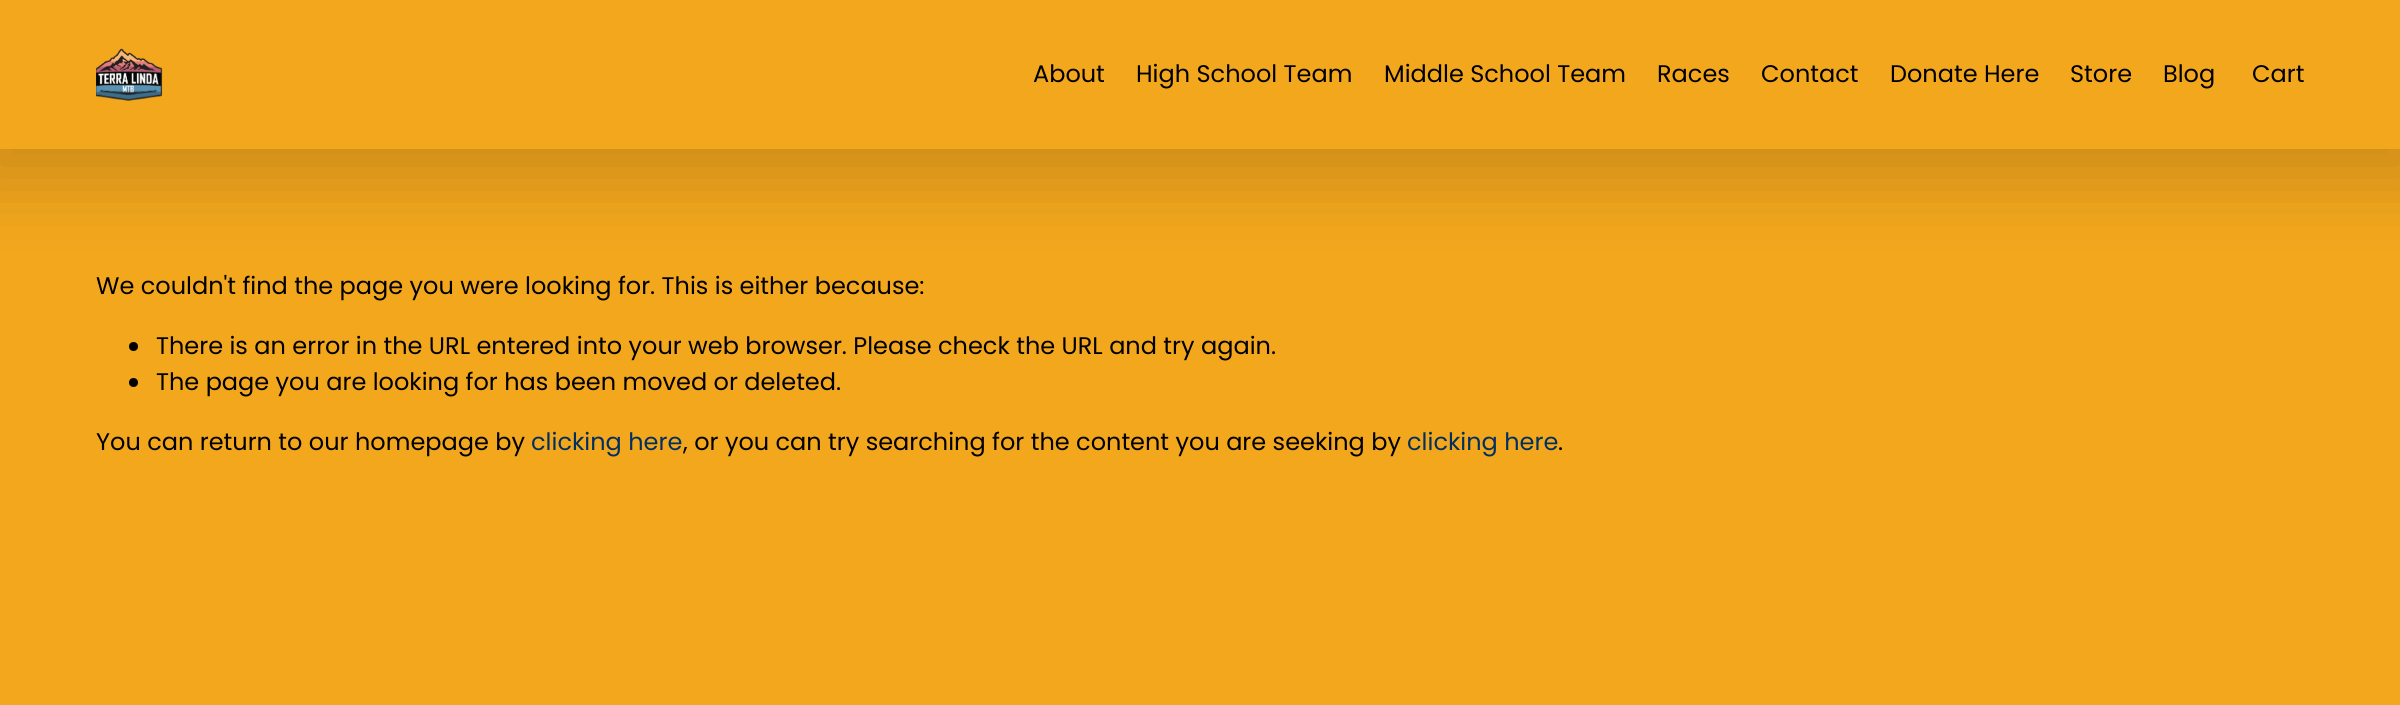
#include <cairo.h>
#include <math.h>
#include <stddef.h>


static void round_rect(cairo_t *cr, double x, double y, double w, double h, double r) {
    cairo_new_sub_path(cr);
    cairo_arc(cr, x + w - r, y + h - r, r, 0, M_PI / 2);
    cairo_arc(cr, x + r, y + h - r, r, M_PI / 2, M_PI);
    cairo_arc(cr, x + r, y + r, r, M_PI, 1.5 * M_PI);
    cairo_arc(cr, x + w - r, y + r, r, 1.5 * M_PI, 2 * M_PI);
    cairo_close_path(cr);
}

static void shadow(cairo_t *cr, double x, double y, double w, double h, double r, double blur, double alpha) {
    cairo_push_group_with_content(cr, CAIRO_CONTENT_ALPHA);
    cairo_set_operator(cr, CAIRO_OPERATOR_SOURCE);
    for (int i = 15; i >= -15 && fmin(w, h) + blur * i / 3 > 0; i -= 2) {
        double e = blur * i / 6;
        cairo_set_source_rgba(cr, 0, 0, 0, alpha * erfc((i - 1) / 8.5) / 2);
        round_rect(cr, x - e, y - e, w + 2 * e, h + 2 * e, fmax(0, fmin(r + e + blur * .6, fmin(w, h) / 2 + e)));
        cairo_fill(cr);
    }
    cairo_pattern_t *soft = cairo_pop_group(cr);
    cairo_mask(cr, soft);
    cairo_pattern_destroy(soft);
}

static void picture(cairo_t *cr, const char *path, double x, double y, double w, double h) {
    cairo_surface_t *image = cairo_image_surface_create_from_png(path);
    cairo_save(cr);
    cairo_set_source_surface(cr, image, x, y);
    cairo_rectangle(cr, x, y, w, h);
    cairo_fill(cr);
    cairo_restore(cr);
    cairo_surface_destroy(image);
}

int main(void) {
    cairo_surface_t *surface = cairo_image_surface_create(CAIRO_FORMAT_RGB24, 2400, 705);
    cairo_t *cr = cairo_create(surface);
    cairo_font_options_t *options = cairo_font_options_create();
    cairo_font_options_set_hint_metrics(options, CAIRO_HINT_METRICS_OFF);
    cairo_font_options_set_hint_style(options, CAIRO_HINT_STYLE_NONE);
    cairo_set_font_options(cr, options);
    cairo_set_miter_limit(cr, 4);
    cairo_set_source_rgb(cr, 0.953, 0.655, 0.114);
    cairo_paint(cr);
    cairo_save(cr);
    cairo_set_fill_rule(cr, CAIRO_FILL_RULE_EVEN_ODD);
    cairo_new_path(cr);
    cairo_move_to(cr, 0, 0);
    cairo_line_to(cr, 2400, 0);
    cairo_line_to(cr, 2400, 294);
    cairo_line_to(cr, 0, 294);
    cairo_close_path(cr);
    cairo_move_to(cr, 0, 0);
    cairo_line_to(cr, 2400, 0);
    cairo_line_to(cr, 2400, 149);
    cairo_line_to(cr, 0, 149);
    cairo_close_path(cr);
    cairo_clip(cr);
    cairo_set_source_rgb(cr, 0.812, 0.557, 0.098);
    shadow(cr, -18, 0, 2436, 185, 0, 36, 1);
    cairo_restore(cr);
    picture(cr, "img1.png", 96, 48, 67, 53);
    cairo_select_font_face(cr, "Poppins", CAIRO_FONT_SLANT_NORMAL, CAIRO_FONT_WEIGHT_NORMAL);
    cairo_set_font_size(cr, 24);
    cairo_set_source_rgb(cr, 0, 0, 0);
    cairo_move_to(cr, 1033, 82);
    cairo_show_text(cr, "About");
    cairo_move_to(cr, 1136, 82);
    cairo_show_text(cr, "High School Team");
    cairo_move_to(cr, 1384, 82);
    cairo_show_text(cr, "Middle School Team");
    cairo_move_to(cr, 1657, 82);
    cairo_show_text(cr, "Races");
    cairo_move_to(cr, 1761, 82);
    cairo_show_text(cr, "Contact");
    cairo_move_to(cr, 1890, 82);
    cairo_show_text(cr, "Donate Here");
    cairo_move_to(cr, 2070, 82);
    cairo_show_text(cr, "Store");
    cairo_move_to(cr, 2163, 82);
    cairo_show_text(cr, "Blog");
    cairo_move_to(cr, 2252, 82);
    cairo_show_text(cr, "Cart");
    cairo_move_to(cr, 96, 294);
    cairo_show_text(cr, "We couldn't find the page you were looking for. This is either because:");
    cairo_new_path(cr);
    cairo_arc(cr, 133.5, 346.5, 4.5, 0, 2 * M_PI);
    cairo_fill(cr);
    cairo_move_to(cr, 156, 354);
    cairo_show_text(cr, "There is an error in the URL entered into your web browser. Please check the URL and try again.");
    cairo_new_path(cr);
    cairo_arc(cr, 133.5, 382.5, 4.5, 0, 2 * M_PI);
    cairo_fill(cr);
    cairo_move_to(cr, 156, 390);
    cairo_show_text(cr, "The page you are looking for has been moved or deleted.");
    cairo_move_to(cr, 96, 450);
    cairo_show_text(cr, "You can return to our homepage by");
    cairo_set_source_rgb(cr, 0.004, 0.184, 0.373);
    cairo_move_to(cr, 531, 450);
    cairo_show_text(cr, "clicking here");
    cairo_set_source_rgb(cr, 0, 0, 0);
    cairo_move_to(cr, 683, 450);
    cairo_show_text(cr, ", or you can try searching for the content you are seeking by");
    cairo_set_source_rgb(cr, 0.004, 0.184, 0.373);
    cairo_move_to(cr, 1407, 450);
    cairo_show_text(cr, "clicking here");
    cairo_set_source_rgb(cr, 0, 0, 0);
    cairo_move_to(cr, 1558, 450);
    cairo_show_text(cr, ".");
    cairo_surface_write_to_png(surface, "page.png");
    cairo_font_options_destroy(options);
    cairo_destroy(cr);
    cairo_surface_destroy(surface);
    return 0;
}
